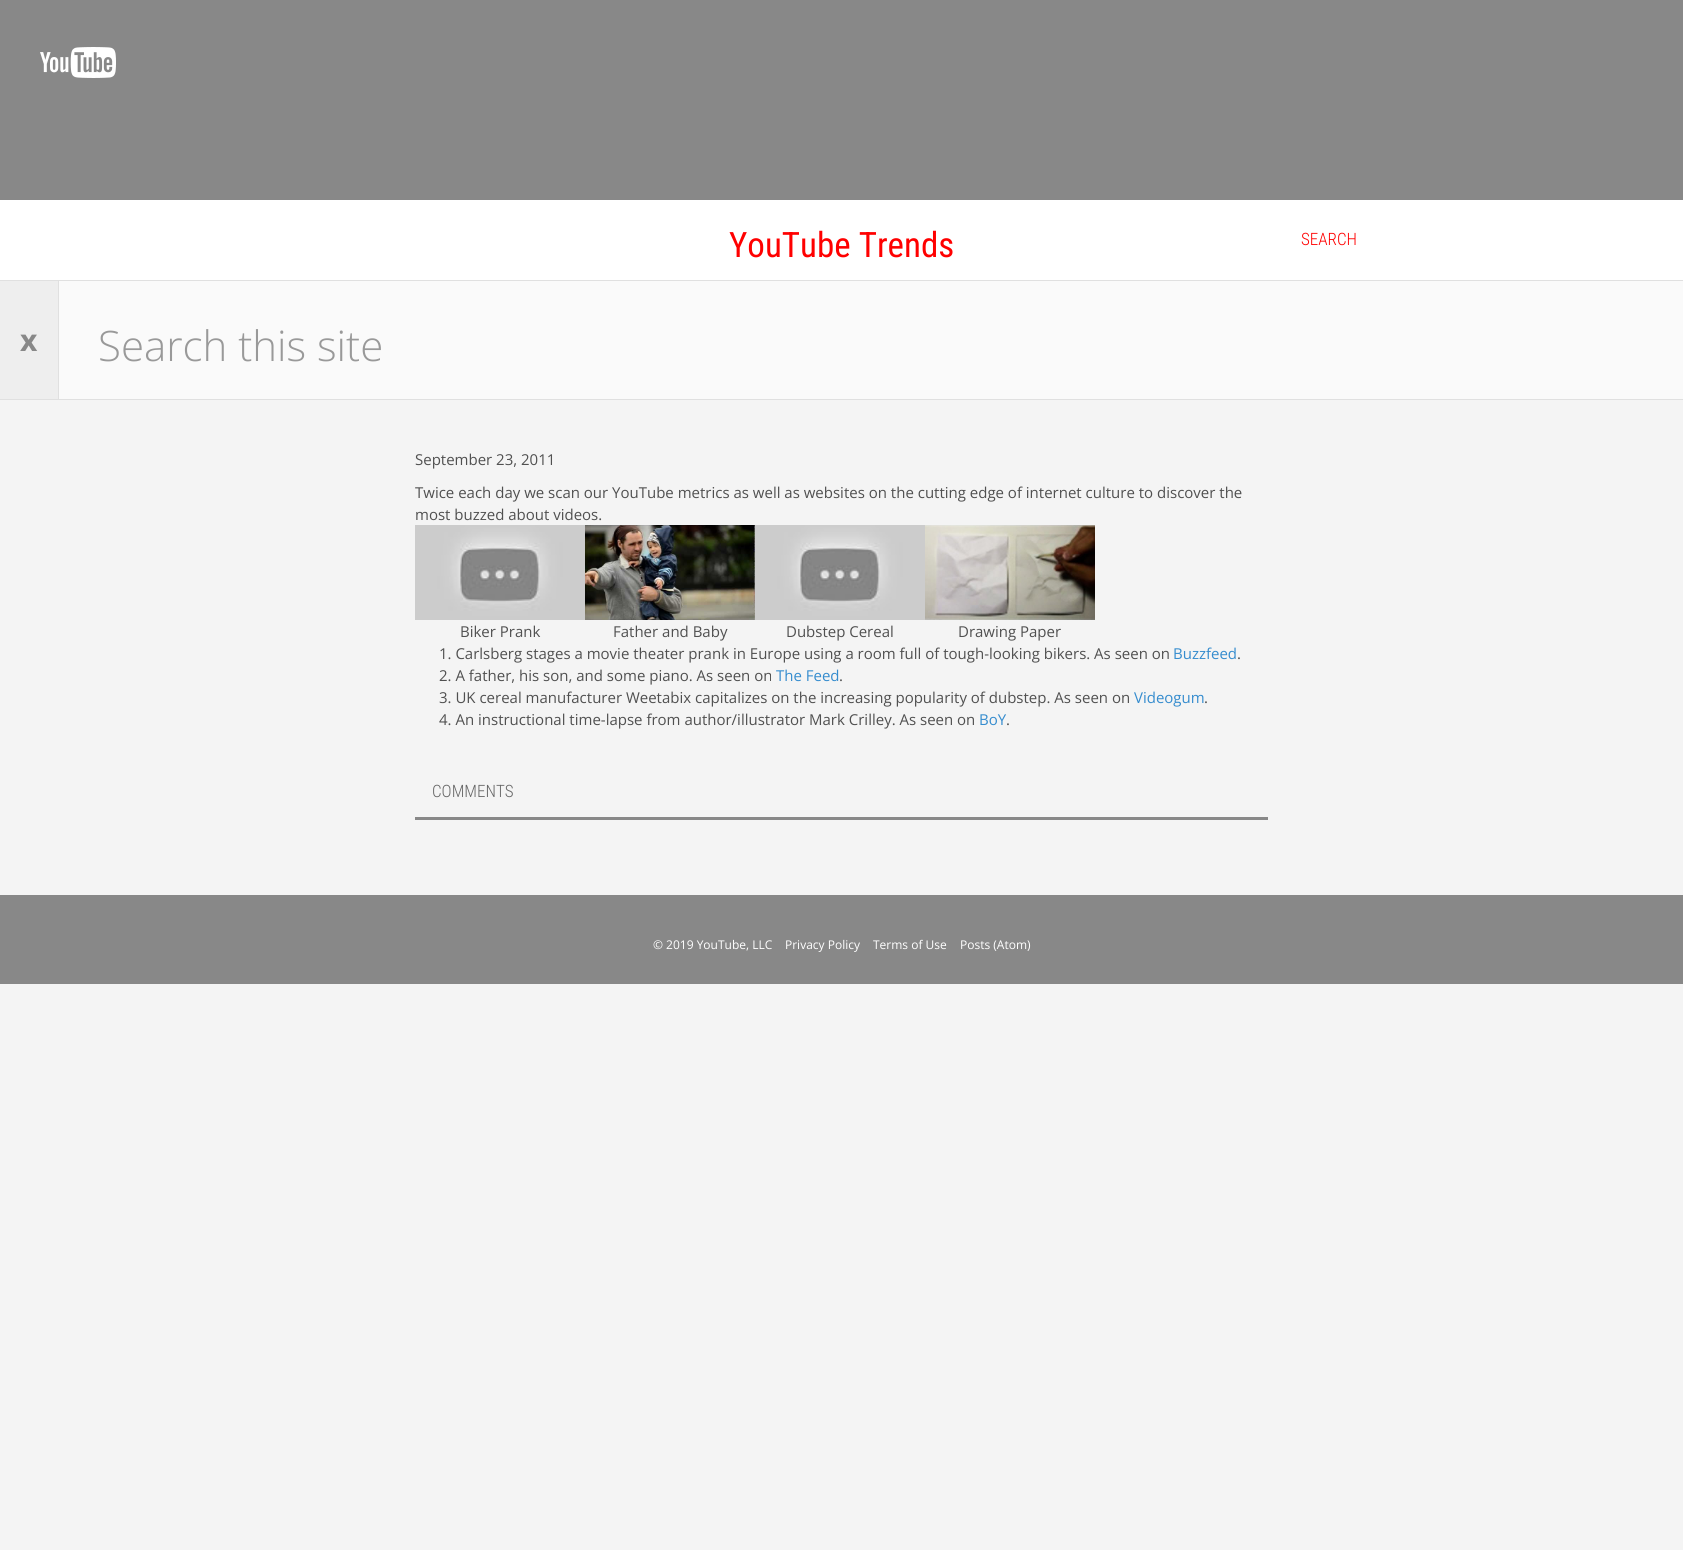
#include <cairo.h>
#include <math.h>
#include <stddef.h>


static void picture(cairo_t *cr, const char *path, double x, double y, double w, double h) {
    cairo_surface_t *image = cairo_image_surface_create_from_png(path);
    cairo_save(cr);
    cairo_set_source_surface(cr, image, x, y);
    cairo_rectangle(cr, x, y, w, h);
    cairo_fill(cr);
    cairo_restore(cr);
    cairo_surface_destroy(image);
}

int main(void) {
    cairo_surface_t *surface = cairo_image_surface_create(CAIRO_FORMAT_RGB24, 1683, 1550);
    cairo_t *cr = cairo_create(surface);
    cairo_font_options_t *options = cairo_font_options_create();
    cairo_font_options_set_hint_metrics(options, CAIRO_HINT_METRICS_OFF);
    cairo_font_options_set_hint_style(options, CAIRO_HINT_STYLE_NONE);
    cairo_set_font_options(cr, options);
    cairo_set_miter_limit(cr, 4);
    cairo_set_source_rgb(cr, 0.957, 0.957, 0.957);
    cairo_paint(cr);
    cairo_set_source_rgb(cr, 1, 1, 1);
    cairo_rectangle(cr, 0, 200, 1683, 80);
    cairo_fill(cr);
    cairo_set_source_rgb(cr, 0.533, 0.533, 0.533);
    cairo_rectangle(cr, 0, 0, 1683, 200);
    cairo_fill(cr);
    picture(cr, "img1.png", 40, 47, 76, 31);
    cairo_select_font_face(cr, "Roboto Condensed", CAIRO_FONT_SLANT_NORMAL, CAIRO_FONT_WEIGHT_NORMAL);
    cairo_set_font_size(cr, 35);
    cairo_set_source_rgb(cr, 1, 0, 0);
    cairo_move_to(cr, 729, 257);
    cairo_show_text(cr, "YouTube Trends");
    cairo_select_font_face(cr, "Roboto Condensed Light", CAIRO_FONT_SLANT_NORMAL, CAIRO_FONT_WEIGHT_NORMAL);
    cairo_set_font_size(cr, 17);
    cairo_move_to(cr, 1301, 245);
    cairo_show_text(cr, "SEARCH");
    cairo_set_source_rgb(cr, 0.98, 0.98, 0.98);
    cairo_rectangle(cr, 59, 281, 1624, 118);
    cairo_fill(cr);
    cairo_set_source_rgb(cr, 0.878, 0.878, 0.878);
    cairo_rectangle(cr, 0, 280, 1683, 1);
    cairo_fill(cr);
    cairo_rectangle(cr, 0, 399, 1683, 1);
    cairo_fill(cr);
    cairo_set_source_rgb(cr, 0.933, 0.933, 0.933);
    cairo_rectangle(cr, 0, 281, 58, 118);
    cairo_fill(cr);
    cairo_set_source_rgb(cr, 0.878, 0.878, 0.878);
    cairo_rectangle(cr, 58, 281, 1, 118);
    cairo_fill(cr);
    cairo_select_font_face(cr, "Open Sans", CAIRO_FONT_SLANT_NORMAL, CAIRO_FONT_WEIGHT_BOLD);
    cairo_set_font_size(cr, 30);
    cairo_set_source_rgb(cr, 0.533, 0.533, 0.533);
    cairo_move_to(cr, 20, 351);
    cairo_show_text(cr, "x");
    cairo_select_font_face(cr, "Open Sans Light", CAIRO_FONT_SLANT_NORMAL, CAIRO_FONT_WEIGHT_NORMAL);
    cairo_set_font_size(cr, 42);
    cairo_set_source_rgb(cr, 0.6, 0.6, 0.6);
    cairo_move_to(cr, 98, 361);
    cairo_show_text(cr, "Search this site");
    cairo_select_font_face(cr, "Open Sans", CAIRO_FONT_SLANT_NORMAL, CAIRO_FONT_WEIGHT_NORMAL);
    cairo_set_font_size(cr, 15);
    cairo_set_source_rgb(cr, 0.314, 0.314, 0.314);
    cairo_move_to(cr, 415, 465);
    cairo_show_text(cr, "September 23, 2011");
    cairo_move_to(cr, 415, 498);
    cairo_show_text(cr, "Twice each day we scan our YouTube metrics as well as websites on the cutting edge of internet culture to discover the");
    cairo_move_to(cr, 415, 520);
    cairo_show_text(cr, "most buzzed about videos.");
    picture(cr, "img2.png", 415, 525, 170, 95);
    picture(cr, "img3.png", 585, 525, 170, 95);
    picture(cr, "img4.png", 755, 525, 170, 95);
    picture(cr, "img5.png", 925, 525, 170, 95);
    cairo_move_to(cr, 460, 637);
    cairo_show_text(cr, "Biker Prank");
    cairo_move_to(cr, 613, 637);
    cairo_show_text(cr, "Father and Baby");
    cairo_move_to(cr, 786, 637);
    cairo_show_text(cr, "Dubstep Cereal");
    cairo_move_to(cr, 958, 637);
    cairo_show_text(cr, "Drawing Paper");
    cairo_move_to(cr, 439, 659);
    cairo_show_text(cr, "1. Carlsberg stages a movie theater prank in Europe using a room full of tough-looking bikers. As seen on");
    cairo_set_source_rgb(cr, 0.208, 0.549, 0.808);
    cairo_move_to(cr, 1173, 659);
    cairo_show_text(cr, "Buzzfeed");
    cairo_set_source_rgb(cr, 0.314, 0.314, 0.314);
    cairo_move_to(cr, 1237, 659);
    cairo_show_text(cr, ".");
    cairo_move_to(cr, 439, 681);
    cairo_show_text(cr, "2. A father, his son, and some piano. As seen on");
    cairo_set_source_rgb(cr, 0.208, 0.549, 0.808);
    cairo_move_to(cr, 776, 681);
    cairo_show_text(cr, "The Feed");
    cairo_set_source_rgb(cr, 0.314, 0.314, 0.314);
    cairo_move_to(cr, 839, 681);
    cairo_show_text(cr, ".");
    cairo_move_to(cr, 439, 703);
    cairo_show_text(cr, "3. UK cereal manufacturer Weetabix capitalizes on the increasing popularity of dubstep. As seen on");
    cairo_set_source_rgb(cr, 0.208, 0.549, 0.808);
    cairo_move_to(cr, 1134, 703);
    cairo_show_text(cr, "Videogum");
    cairo_set_source_rgb(cr, 0.314, 0.314, 0.314);
    cairo_move_to(cr, 1204, 703);
    cairo_show_text(cr, ".");
    cairo_move_to(cr, 439, 725);
    cairo_show_text(cr, "4. An instructional time-lapse from author/illustrator Mark Crilley. As seen on");
    cairo_set_source_rgb(cr, 0.208, 0.549, 0.808);
    cairo_move_to(cr, 979, 725);
    cairo_show_text(cr, "BoY");
    cairo_set_source_rgb(cr, 0.314, 0.314, 0.314);
    cairo_move_to(cr, 1006, 725);
    cairo_show_text(cr, ".");
    cairo_set_source_rgb(cr, 0.533, 0.533, 0.533);
    cairo_rectangle(cr, 415, 817, 853, 3);
    cairo_fill(cr);
    cairo_select_font_face(cr, "Roboto Condensed Light", CAIRO_FONT_SLANT_NORMAL, CAIRO_FONT_WEIGHT_NORMAL);
    cairo_set_font_size(cr, 17);
    cairo_set_source_rgb(cr, 0.4, 0.4, 0.4);
    cairo_move_to(cr, 432, 797);
    cairo_show_text(cr, "COMMENTS");
    cairo_set_source_rgb(cr, 0.533, 0.533, 0.533);
    cairo_rectangle(cr, 0, 895, 1683, 89);
    cairo_fill(cr);
    cairo_select_font_face(cr, "Open Sans", CAIRO_FONT_SLANT_NORMAL, CAIRO_FONT_WEIGHT_NORMAL);
    cairo_set_font_size(cr, 12);
    cairo_set_source_rgb(cr, 1, 1, 1);
    cairo_move_to(cr, 653, 949);
    cairo_show_text(cr, "© 2019 YouTube, LLC");
    cairo_move_to(cr, 785, 949);
    cairo_show_text(cr, "Privacy Policy");
    cairo_move_to(cr, 873, 949);
    cairo_show_text(cr, "Terms of Use");
    cairo_move_to(cr, 960, 949);
    cairo_show_text(cr, "Posts (Atom)");
    cairo_surface_write_to_png(surface, "page.png");
    cairo_font_options_destroy(options);
    cairo_destroy(cr);
    cairo_surface_destroy(surface);
    return 0;
}
